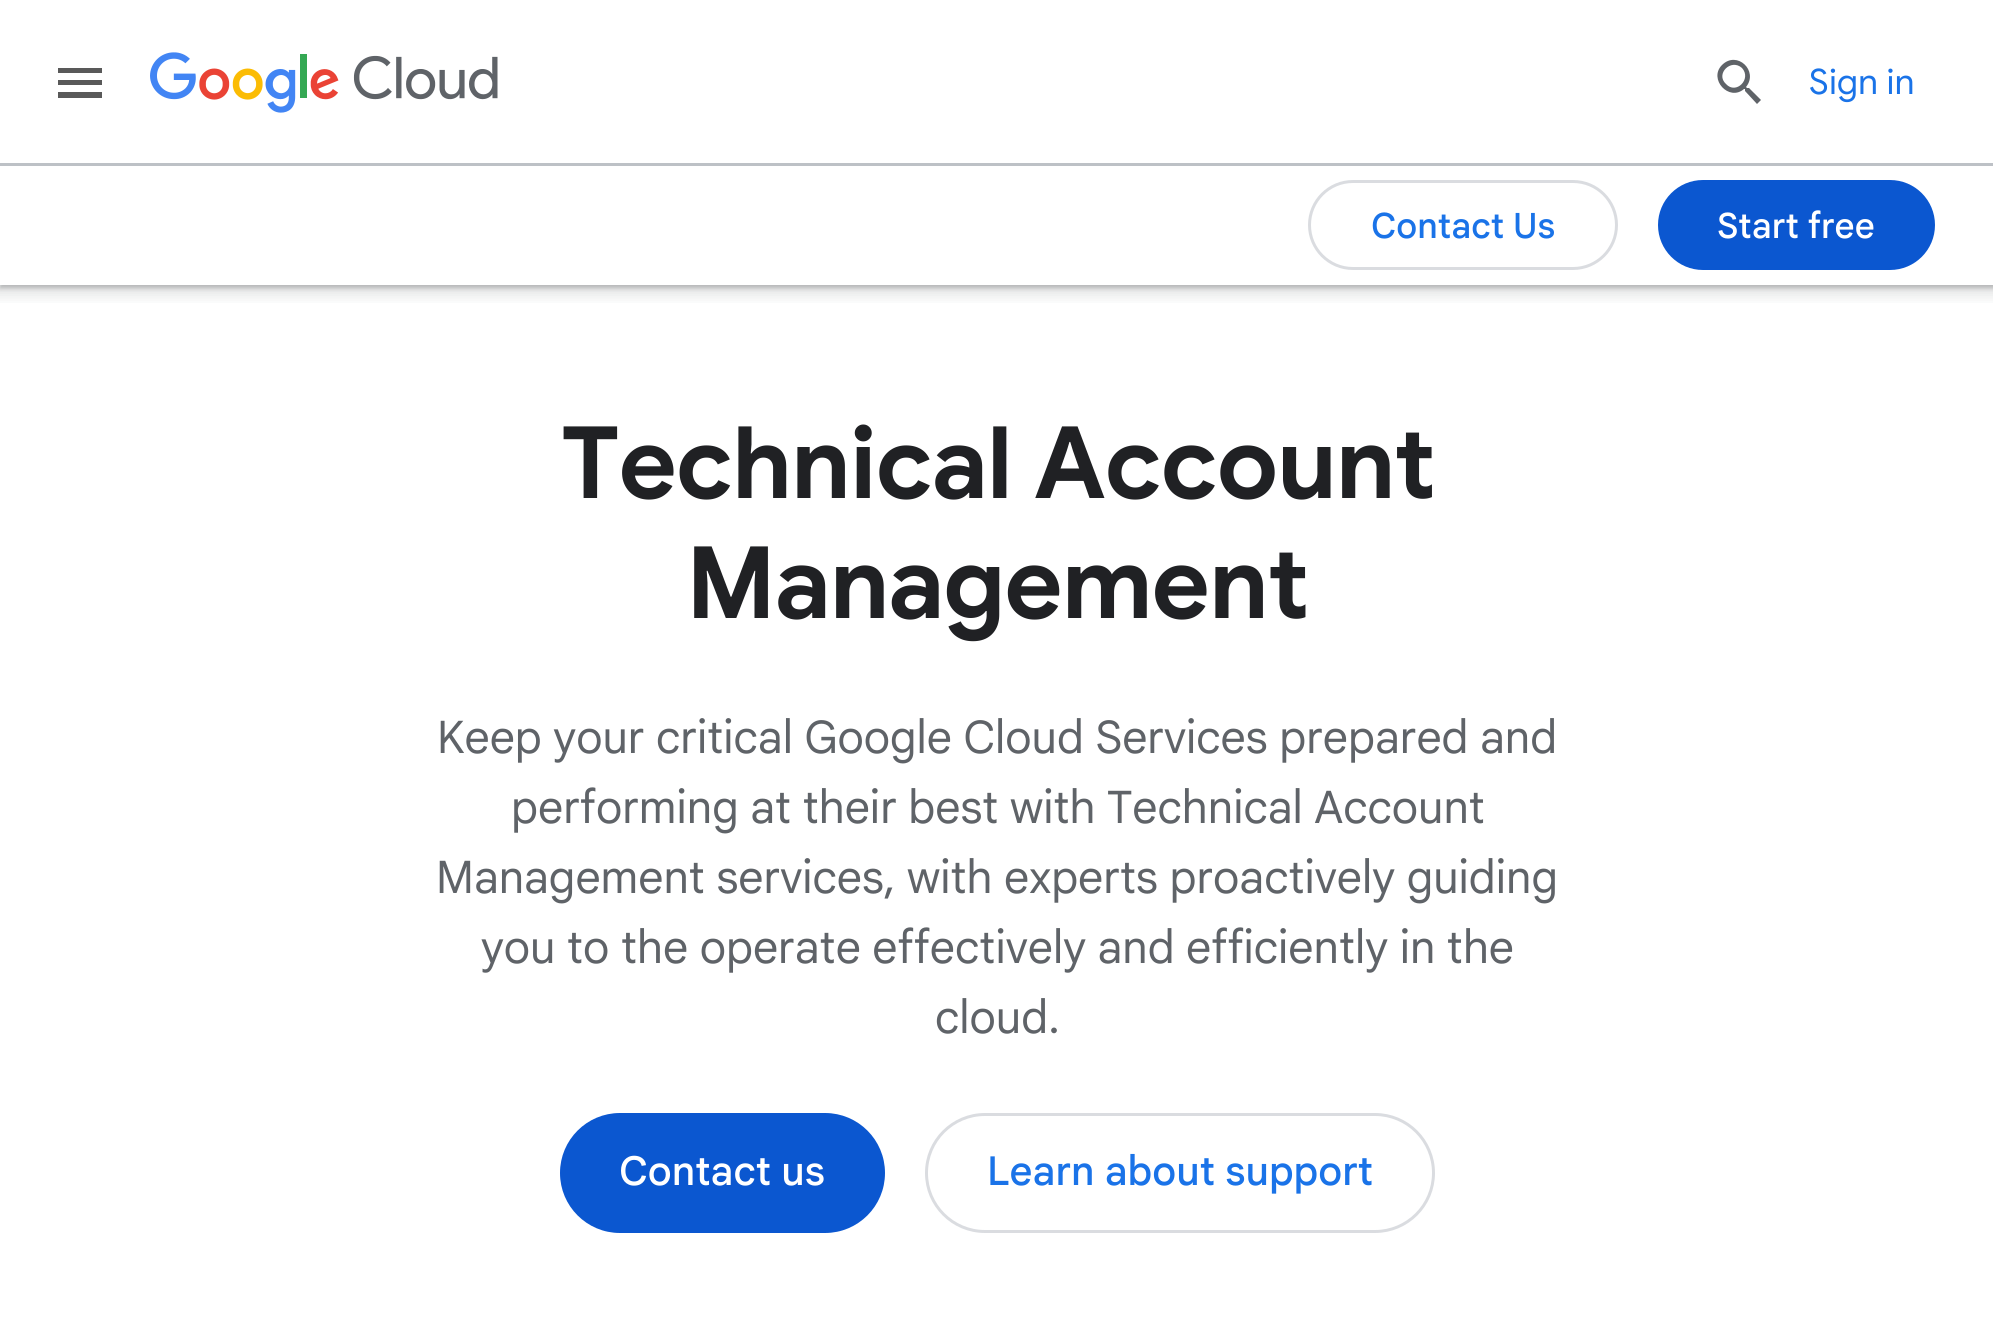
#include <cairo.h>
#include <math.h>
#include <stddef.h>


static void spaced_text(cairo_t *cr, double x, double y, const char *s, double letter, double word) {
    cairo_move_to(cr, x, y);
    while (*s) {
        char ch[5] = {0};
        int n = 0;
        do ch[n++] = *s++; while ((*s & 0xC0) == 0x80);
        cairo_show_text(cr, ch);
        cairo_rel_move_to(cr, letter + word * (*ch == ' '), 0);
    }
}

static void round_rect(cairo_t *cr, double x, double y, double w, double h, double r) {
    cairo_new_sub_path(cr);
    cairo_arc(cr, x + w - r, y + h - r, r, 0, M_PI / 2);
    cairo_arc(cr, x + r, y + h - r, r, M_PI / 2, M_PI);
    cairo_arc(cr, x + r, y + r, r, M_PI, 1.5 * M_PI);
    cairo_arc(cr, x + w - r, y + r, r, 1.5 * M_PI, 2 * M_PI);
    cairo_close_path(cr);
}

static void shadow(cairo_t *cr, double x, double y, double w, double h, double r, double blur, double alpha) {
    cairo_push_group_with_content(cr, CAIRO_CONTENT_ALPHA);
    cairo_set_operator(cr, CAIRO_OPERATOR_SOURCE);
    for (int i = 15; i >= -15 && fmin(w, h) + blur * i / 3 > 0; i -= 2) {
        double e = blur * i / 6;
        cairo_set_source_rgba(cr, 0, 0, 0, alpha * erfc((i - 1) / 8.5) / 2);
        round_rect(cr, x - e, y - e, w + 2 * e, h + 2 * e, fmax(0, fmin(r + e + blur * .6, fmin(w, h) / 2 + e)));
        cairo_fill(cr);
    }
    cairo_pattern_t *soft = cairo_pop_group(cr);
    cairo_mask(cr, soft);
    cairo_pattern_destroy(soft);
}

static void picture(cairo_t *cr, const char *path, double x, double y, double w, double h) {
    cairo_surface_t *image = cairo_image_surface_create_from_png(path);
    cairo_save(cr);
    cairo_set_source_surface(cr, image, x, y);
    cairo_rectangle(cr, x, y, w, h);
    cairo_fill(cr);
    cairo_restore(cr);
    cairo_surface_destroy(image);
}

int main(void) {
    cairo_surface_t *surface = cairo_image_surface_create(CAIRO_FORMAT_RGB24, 1993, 1331);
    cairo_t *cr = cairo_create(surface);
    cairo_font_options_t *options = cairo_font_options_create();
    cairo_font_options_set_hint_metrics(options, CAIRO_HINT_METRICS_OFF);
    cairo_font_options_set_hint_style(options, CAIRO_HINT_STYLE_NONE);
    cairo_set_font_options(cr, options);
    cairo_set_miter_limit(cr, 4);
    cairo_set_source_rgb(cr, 1, 1, 1);
    cairo_paint(cr);
    round_rect(cr, 1309.5, 181.5, 307, 87, 43.5);
    cairo_set_source_rgb(cr, 0.855, 0.863, 0.878);
    cairo_set_line_width(cr, 3);
    cairo_stroke(cr);
    cairo_set_source_rgb(cr, 0.043, 0.341, 0.816);
    round_rect(cr, 1658, 180, 277, 90, 45);
    cairo_fill(cr);
    cairo_save(cr);
    cairo_rectangle(cr, 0, 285, 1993, 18);
    cairo_clip(cr);
    cairo_set_source_rgb(cr, 0.235, 0.251, 0.263);
    shadow(cr, -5, 0, 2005, 295, 0, 7.5, 0.15);
    cairo_restore(cr);
    cairo_save(cr);
    cairo_rectangle(cr, 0, 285, 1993, 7);
    cairo_clip(cr);
    cairo_set_source_rgb(cr, 0.235, 0.251, 0.263);
    shadow(cr, 0, 3, 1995, 285, 0, 2.5, 0.3);
    cairo_restore(cr);
    cairo_set_source_rgb(cr, 0.741, 0.757, 0.776);
    cairo_rectangle(cr, 0, 163, 1993, 3);
    cairo_fill(cr);
    cairo_set_source_rgb(cr, 0.349, 0.349, 0.349);
    cairo_new_path(cr);
    cairo_move_to(cr, 58, 68);
    cairo_line_to(cr, 102, 68);
    cairo_line_to(cr, 102, 73);
    cairo_line_to(cr, 58, 73);
    cairo_close_path(cr);
    cairo_move_to(cr, 58, 85);
    cairo_line_to(cr, 58, 80);
    cairo_line_to(cr, 102, 80);
    cairo_line_to(cr, 102, 85);
    cairo_close_path(cr);
    cairo_move_to(cr, 58, 98);
    cairo_line_to(cr, 58, 92);
    cairo_line_to(cr, 102, 92);
    cairo_line_to(cr, 102, 98);
    cairo_close_path(cr);
    cairo_fill(cr);
    picture(cr, "img1.png", 150, 52, 348, 61);
    cairo_set_source_rgb(cr, 0.373, 0.388, 0.408);
    cairo_new_path(cr);
    cairo_move_to(cr, 1726, 84);
    cairo_curve_to(cr, 1736, 95, 1752, 79, 1742, 68);
    cairo_curve_to(cr, 1731, 58, 1715, 74, 1726, 84);
    cairo_close_path(cr);
    cairo_move_to(cr, 1749, 88);
    cairo_line_to(cr, 1761, 100);
    cairo_line_to(cr, 1757, 104);
    cairo_line_to(cr, 1745, 91);
    cairo_line_to(cr, 1745, 89);
    cairo_line_to(cr, 1744, 89);
    cairo_curve_to(cr, 1729, 102, 1708, 79, 1722, 65);
    cairo_curve_to(cr, 1737, 50, 1759, 71, 1746, 87);
    cairo_line_to(cr, 1747, 88);
    cairo_close_path(cr);
    cairo_fill(cr);
    cairo_select_font_face(cr, "Google Sans", CAIRO_FONT_SLANT_NORMAL, CAIRO_FONT_WEIGHT_NORMAL);
    cairo_set_font_size(cr, 35);
    cairo_set_source_rgb(cr, 0.102, 0.451, 0.91);
    spaced_text(cr, 1809, 94, "Sign in", 0.25, 0);
    cairo_select_font_face(cr, "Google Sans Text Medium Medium", CAIRO_FONT_SLANT_NORMAL, CAIRO_FONT_WEIGHT_NORMAL);
    cairo_move_to(cr, 1371, 238);
    cairo_show_text(cr, "Contact Us");
    cairo_set_source_rgb(cr, 1, 1, 1);
    cairo_move_to(cr, 1717, 238);
    cairo_show_text(cr, "Start free");
    cairo_select_font_face(cr, "Google Sans", CAIRO_FONT_SLANT_NORMAL, CAIRO_FONT_WEIGHT_BOLD);
    cairo_set_font_size(cr, 100);
    cairo_set_source_rgb(cr, 0.125, 0.129, 0.141);
    spaced_text(cr, 561, 498, "Technical Account", -1.25, 0);
    spaced_text(cr, 686, 618, "Management", -1.25, 0);
    cairo_select_font_face(cr, "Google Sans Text", CAIRO_FONT_SLANT_NORMAL, CAIRO_FONT_WEIGHT_NORMAL);
    cairo_set_font_size(cr, 45);
    cairo_set_source_rgb(cr, 0.373, 0.388, 0.408);
    cairo_move_to(cr, 437, 753);
    cairo_show_text(cr, "Keep your critical Google Cloud Services prepared and");
    cairo_move_to(cr, 511, 823);
    cairo_show_text(cr, "performing at their best with Technical Account");
    cairo_move_to(cr, 436, 893);
    cairo_show_text(cr, "Management services, with experts proactively guiding");
    cairo_move_to(cr, 481, 963);
    cairo_show_text(cr, "you to the operate effectively and efficiently in the");
    cairo_move_to(cr, 935, 1033);
    cairo_show_text(cr, "cloud.");
    cairo_set_source_rgb(cr, 0.043, 0.341, 0.816);
    round_rect(cr, 560, 1113, 325, 120, 60);
    cairo_fill(cr);
    cairo_select_font_face(cr, "Google Sans Text Medium Medium", CAIRO_FONT_SLANT_NORMAL, CAIRO_FONT_WEIGHT_NORMAL);
    cairo_set_font_size(cr, 40);
    cairo_set_source_rgb(cr, 1, 1, 1);
    cairo_move_to(cr, 619, 1185);
    cairo_show_text(cr, "Contact us");
    round_rect(cr, 926.5, 1114.5, 507, 117, 58.5);
    cairo_set_source_rgb(cr, 0.855, 0.863, 0.878);
    cairo_stroke(cr);
    cairo_set_source_rgb(cr, 0.102, 0.451, 0.91);
    cairo_move_to(cr, 987, 1185);
    cairo_show_text(cr, "Learn about support");
    cairo_surface_write_to_png(surface, "page.png");
    cairo_font_options_destroy(options);
    cairo_destroy(cr);
    cairo_surface_destroy(surface);
    return 0;
}
